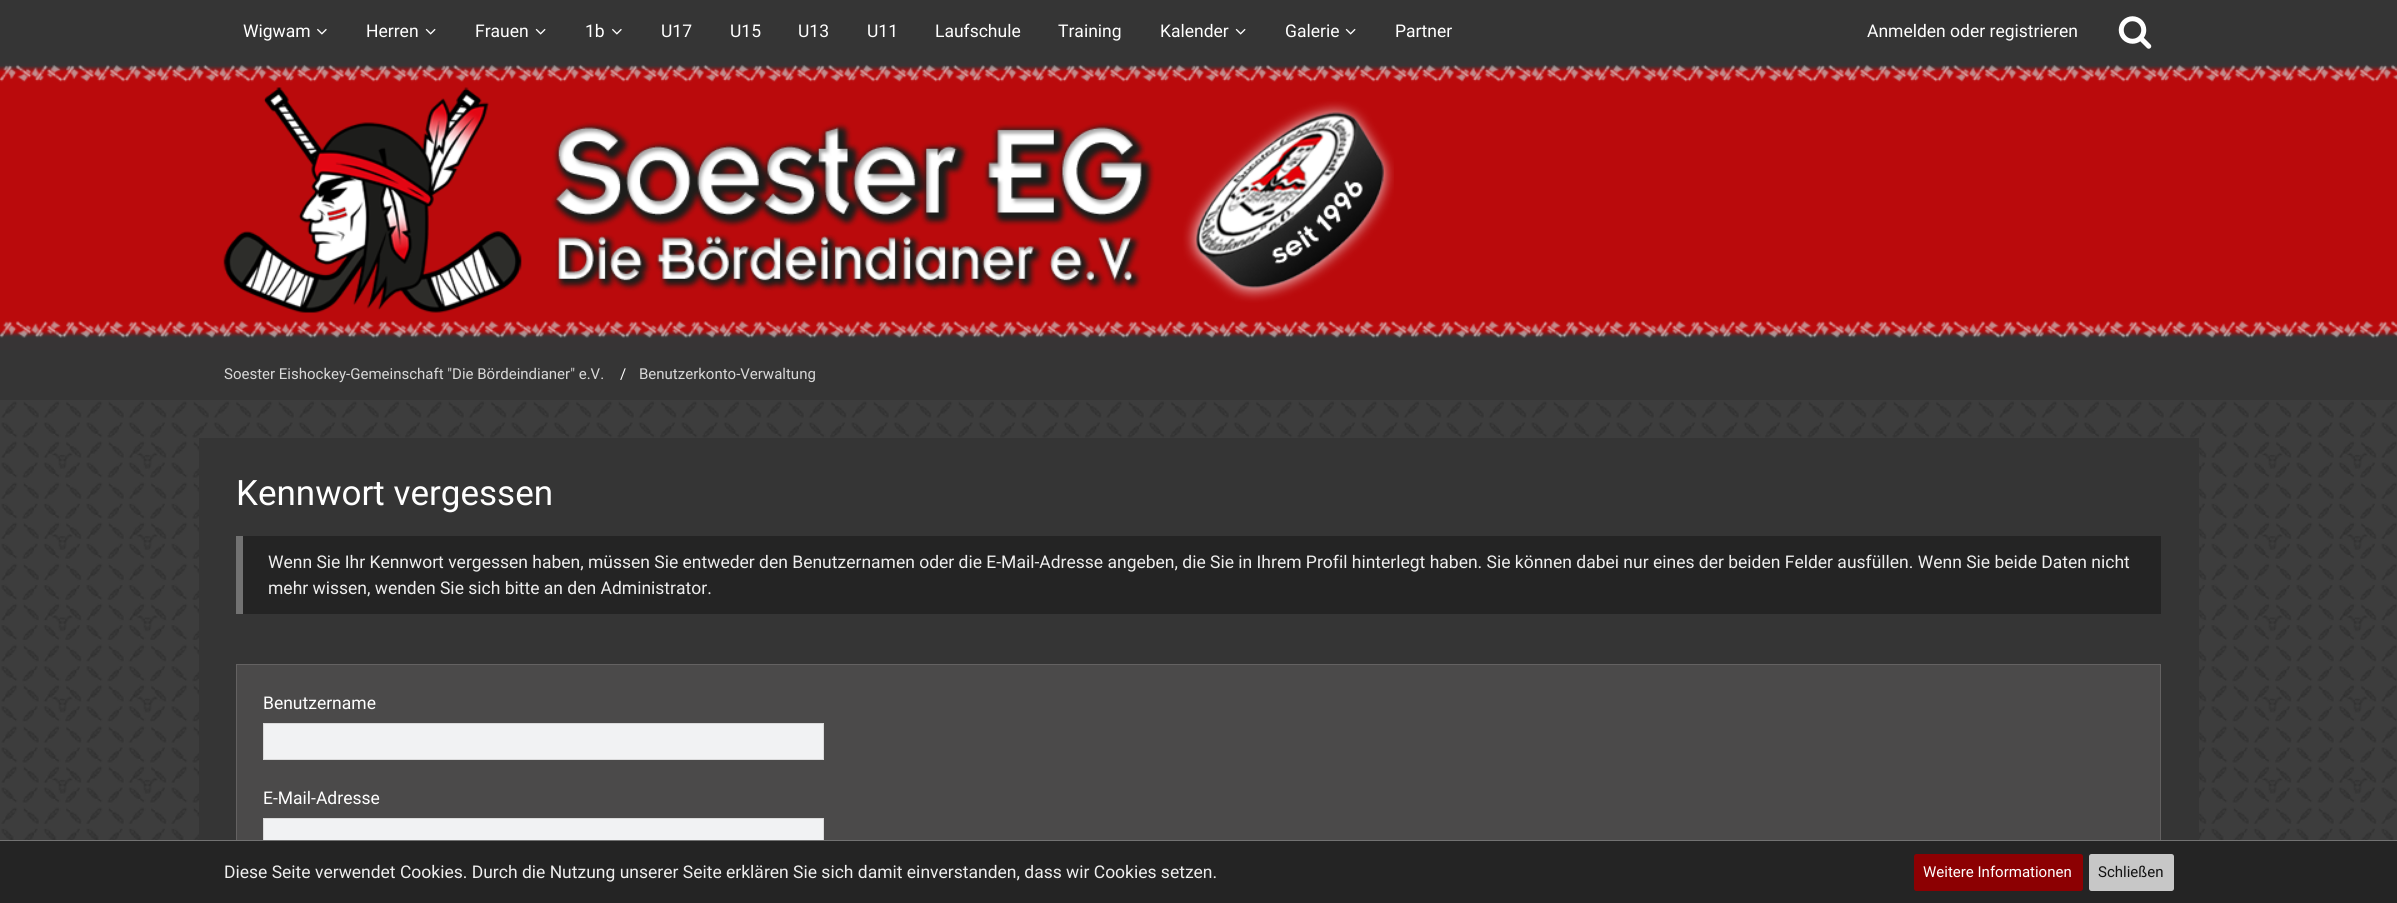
#include <cairo.h>
#include <math.h>
#include <stddef.h>


static void round_rect(cairo_t *cr, double x, double y, double w, double h, double r) {
    cairo_new_sub_path(cr);
    cairo_arc(cr, x + w - r, y + h - r, r, 0, M_PI / 2);
    cairo_arc(cr, x + r, y + h - r, r, M_PI / 2, M_PI);
    cairo_arc(cr, x + r, y + r, r, M_PI, 1.5 * M_PI);
    cairo_arc(cr, x + w - r, y + r, r, 1.5 * M_PI, 2 * M_PI);
    cairo_close_path(cr);
}

static void picture(cairo_t *cr, const char *path, double x, double y, double w, double h) {
    cairo_surface_t *image = cairo_image_surface_create_from_png(path);
    cairo_save(cr);
    cairo_set_source_surface(cr, image, x, y);
    cairo_rectangle(cr, x, y, w, h);
    cairo_fill(cr);
    cairo_restore(cr);
    cairo_surface_destroy(image);
}

int main(void) {
    cairo_surface_t *surface = cairo_image_surface_create(CAIRO_FORMAT_RGB24, 2397, 903);
    cairo_t *cr = cairo_create(surface);
    cairo_font_options_t *options = cairo_font_options_create();
    cairo_font_options_set_hint_metrics(options, CAIRO_HINT_METRICS_OFF);
    cairo_font_options_set_hint_style(options, CAIRO_HINT_STYLE_NONE);
    cairo_set_font_options(cr, options);
    cairo_set_miter_limit(cr, 4);
    cairo_set_source_rgb(cr, 0.208, 0.208, 0.208);
    cairo_paint(cr);
    picture(cr, "img1.png", 0, 63, 2397, 287);
    cairo_select_font_face(cr, "Roboto", CAIRO_FONT_SLANT_NORMAL, CAIRO_FONT_WEIGHT_NORMAL);
    cairo_set_font_size(cr, 17.5);
    cairo_set_source_rgb(cr, 1, 1, 1);
    cairo_move_to(cr, 243, 37);
    cairo_show_text(cr, "Wigwam");
    picture(cr, "img2.png", 317, 28, 10, 7);
    cairo_move_to(cr, 366, 37);
    cairo_show_text(cr, "Herren");
    picture(cr, "img3.png", 425, 28, 11, 7);
    cairo_move_to(cr, 475, 37);
    cairo_show_text(cr, "Frauen");
    picture(cr, "img3.png", 535, 28, 11, 7);
    cairo_move_to(cr, 585, 37);
    cairo_show_text(cr, "1b");
    picture(cr, "img2.png", 612, 28, 10, 7);
    cairo_move_to(cr, 661, 37);
    cairo_show_text(cr, "U17");
    cairo_move_to(cr, 730, 37);
    cairo_show_text(cr, "U15");
    cairo_move_to(cr, 798, 37);
    cairo_show_text(cr, "U13");
    cairo_move_to(cr, 867, 37);
    cairo_show_text(cr, "U11");
    cairo_move_to(cr, 935, 37);
    cairo_show_text(cr, "Laufschule");
    cairo_move_to(cr, 1058, 37);
    cairo_show_text(cr, "Training");
    cairo_move_to(cr, 1160, 37);
    cairo_show_text(cr, "Kalender");
    picture(cr, "img3.png", 1235, 28, 11, 7);
    cairo_move_to(cr, 1285, 37);
    cairo_show_text(cr, "Galerie");
    picture(cr, "img3.png", 1345, 28, 11, 7);
    cairo_move_to(cr, 1395, 37);
    cairo_show_text(cr, "Partner");
    cairo_move_to(cr, 1867, 37);
    cairo_show_text(cr, "Anmelden oder registrieren");
    picture(cr, "img4.png", 2118, 16, 34, 33);
    picture(cr, "img5.png", 223, 87, 1171, 226);
    cairo_set_font_size(cr, 15);
    cairo_set_source_rgb(cr, 0.847, 0.847, 0.847);
    cairo_move_to(cr, 224, 379);
    cairo_show_text(cr, "Soester Eishockey-Gemeinschaft \"Die Bördeindianer\" e.V.");
    cairo_set_source_rgb(cr, 1, 1, 1);
    cairo_move_to(cr, 620, 379);
    cairo_show_text(cr, "/");
    cairo_set_source_rgb(cr, 0.847, 0.847, 0.847);
    cairo_move_to(cr, 639, 379);
    cairo_show_text(cr, "Benutzerkonto-Verwaltung");
    picture(cr, "img6.png", 0, 400, 2397, 440);
    cairo_set_source_rgb(cr, 0.208, 0.208, 0.208);
    cairo_rectangle(cr, 199, 438, 2000, 402);
    cairo_fill(cr);
    cairo_set_font_size(cr, 35);
    cairo_set_source_rgb(cr, 1, 1, 1);
    cairo_move_to(cr, 236, 505);
    cairo_show_text(cr, "Kennwort vergessen");
    cairo_set_source_rgb(cr, 0.141, 0.141, 0.141);
    cairo_rectangle(cr, 243, 536, 1918, 78);
    cairo_fill(cr);
    cairo_set_source_rgb(cr, 0.447, 0.447, 0.447);
    cairo_rectangle(cr, 236, 536, 7, 78);
    cairo_fill(cr);
    cairo_set_font_size(cr, 17.5);
    cairo_set_source_rgb(cr, 0.933, 0.933, 0.933);
    cairo_move_to(cr, 268, 568);
    cairo_show_text(cr, "Wenn Sie Ihr Kennwort vergessen haben, müssen Sie entweder den Benutzernamen oder die E-Mail-Adresse angeben, die Sie in Ihrem Profil hinterlegt haben. Sie können dabei nur eines der beiden Felder ausfüllen. Wenn Sie beide Daten nicht");
    cairo_move_to(cr, 268, 594);
    cairo_show_text(cr, "mehr wissen, wenden Sie sich bitte an den Administrator.");
    cairo_set_source_rgb(cr, 0.294, 0.29, 0.29);
    cairo_rectangle(cr, 237, 665, 1923, 175);
    cairo_fill(cr);
    cairo_rectangle(cr, 236.5, 664.5, 1924, 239);
    cairo_set_source_rgb(cr, 0.392, 0.384, 0.384);
    cairo_set_line_width(cr, 1);
    cairo_stroke(cr);
    cairo_set_source_rgb(cr, 1, 1, 1);
    cairo_move_to(cr, 263, 709);
    cairo_show_text(cr, "Benutzername");
    cairo_set_source_rgb(cr, 0.945, 0.949, 0.953);
    cairo_rectangle(cr, 263.5, 723.5, 560, 36);
    cairo_fill_preserve(cr);
    cairo_set_source_rgb(cr, 0.855, 0.855, 0.855);
    cairo_stroke(cr);
    cairo_set_source_rgb(cr, 1, 1, 1);
    cairo_move_to(cr, 263, 804);
    cairo_show_text(cr, "E-Mail-Adresse");
    cairo_set_source_rgb(cr, 0.945, 0.949, 0.953);
    cairo_rectangle(cr, 264, 819, 559, 21);
    cairo_fill(cr);
    cairo_rectangle(cr, 263.5, 818.5, 560, 37);
    cairo_set_source_rgb(cr, 0.855, 0.855, 0.855);
    cairo_stroke(cr);
    cairo_set_source_rgb(cr, 0.141, 0.141, 0.141);
    cairo_rectangle(cr, 0, 841, 2397, 62);
    cairo_fill(cr);
    cairo_set_source_rgb(cr, 0.447, 0.447, 0.447);
    cairo_rectangle(cr, 0, 840, 2397, 1);
    cairo_fill(cr);
    cairo_set_source_rgb(cr, 0.933, 0.933, 0.933);
    cairo_move_to(cr, 224, 878);
    cairo_show_text(cr, "Diese Seite verwendet Cookies. Durch die Nutzung unserer Seite erklären Sie sich damit einverstanden, dass wir Cookies setzen.");
    cairo_set_source_rgb(cr, 0.549, 0, 0.008);
    round_rect(cr, 1914, 854, 169, 37, 2.5);
    cairo_fill(cr);
    cairo_set_font_size(cr, 15);
    cairo_set_source_rgb(cr, 1, 1, 1);
    cairo_move_to(cr, 1923, 877);
    cairo_show_text(cr, "Weitere Informationen");
    cairo_set_source_rgb(cr, 0.78, 0.78, 0.78);
    round_rect(cr, 2089, 854, 85, 37, 2.5);
    cairo_fill(cr);
    cairo_set_source_rgb(cr, 0.071, 0.071, 0.071);
    cairo_move_to(cr, 2098, 877);
    cairo_show_text(cr, "Schließen");
    cairo_surface_write_to_png(surface, "page.png");
    cairo_font_options_destroy(options);
    cairo_destroy(cr);
    cairo_surface_destroy(surface);
    return 0;
}
